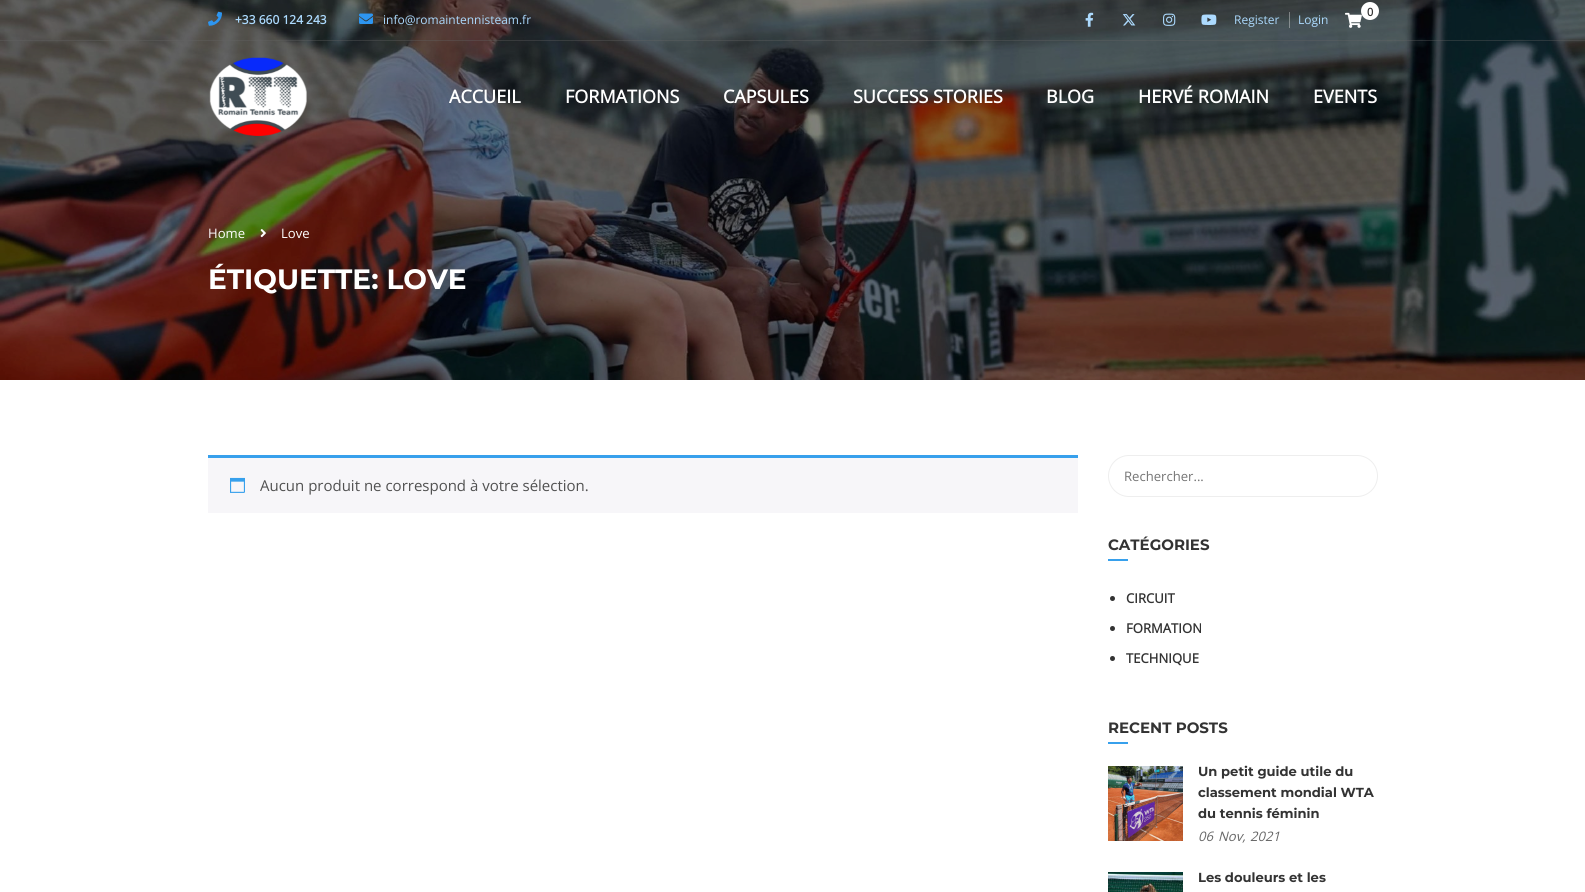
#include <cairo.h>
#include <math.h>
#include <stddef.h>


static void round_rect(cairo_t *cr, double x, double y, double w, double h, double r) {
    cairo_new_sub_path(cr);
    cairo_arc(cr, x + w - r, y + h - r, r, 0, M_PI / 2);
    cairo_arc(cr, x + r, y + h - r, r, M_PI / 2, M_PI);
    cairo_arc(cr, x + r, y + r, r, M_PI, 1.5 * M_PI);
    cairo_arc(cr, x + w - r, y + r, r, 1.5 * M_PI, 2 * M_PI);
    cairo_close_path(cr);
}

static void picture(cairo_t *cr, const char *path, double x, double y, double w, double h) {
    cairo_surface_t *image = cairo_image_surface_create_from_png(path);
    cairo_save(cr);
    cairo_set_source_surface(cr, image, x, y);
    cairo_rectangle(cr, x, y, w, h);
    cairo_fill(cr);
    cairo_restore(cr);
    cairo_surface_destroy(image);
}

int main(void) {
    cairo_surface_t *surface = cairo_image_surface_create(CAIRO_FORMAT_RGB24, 1585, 892);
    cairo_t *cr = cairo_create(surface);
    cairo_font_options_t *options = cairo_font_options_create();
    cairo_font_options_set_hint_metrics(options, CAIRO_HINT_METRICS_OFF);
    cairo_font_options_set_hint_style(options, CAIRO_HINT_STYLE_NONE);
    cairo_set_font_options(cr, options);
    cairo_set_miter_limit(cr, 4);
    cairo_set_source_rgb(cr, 1, 1, 1);
    cairo_paint(cr);
    picture(cr, "img9.png", 0, 0, 1585, 380);
    cairo_set_source_rgba(cr, 0.4, 0.4, 0.4, 0.35);
    cairo_rectangle(cr, 0, 40, 1585, 1);
    cairo_fill(cr);
    picture(cr, "img1.png", 208, 11, 14, 15);
    cairo_select_font_face(cr, "Open Sans", CAIRO_FONT_SLANT_NORMAL, CAIRO_FONT_WEIGHT_BOLD);
    cairo_set_font_size(cr, 12);
    cairo_set_source_rgb(cr, 0.675, 0.855, 0.996);
    cairo_move_to(cr, 235, 24);
    cairo_show_text(cr, "+33 660 124 243");
    picture(cr, "img2.png", 359, 13, 14, 11);
    cairo_select_font_face(cr, "Open Sans", CAIRO_FONT_SLANT_NORMAL, CAIRO_FONT_WEIGHT_NORMAL);
    cairo_move_to(cr, 383, 24);
    cairo_show_text(cr, "info@romaintennisteam.fr");
    picture(cr, "img3.png", 1085, 12, 9, 15);
    picture(cr, "img4.png", 1122, 14, 14, 12);
    picture(cr, "img5.png", 1163, 13, 13, 13);
    picture(cr, "img6.png", 1201, 14, 16, 11);
    cairo_set_source_rgba(cr, 1, 1, 1, 0.35);
    cairo_rectangle(cr, 1289, 12, 1, 16);
    cairo_fill(cr);
    cairo_set_source_rgb(cr, 0.675, 0.855, 0.996);
    cairo_move_to(cr, 1234, 24);
    cairo_show_text(cr, "Register");
    cairo_move_to(cr, 1298, 24);
    cairo_show_text(cr, "Login");
    picture(cr, "img7.png", 1345, 12, 17, 16);
    cairo_set_source_rgb(cr, 1, 1, 1);
    cairo_arc(cr, 1370, 11, 9, 0, 2 * M_PI);
    cairo_fill(cr);
    cairo_select_font_face(cr, "Open Sans", CAIRO_FONT_SLANT_NORMAL, CAIRO_FONT_WEIGHT_BOLD);
    cairo_set_font_size(cr, 11);
    cairo_set_source_rgb(cr, 0.2, 0.2, 0.2);
    cairo_move_to(cr, 1367, 16);
    cairo_show_text(cr, "0");
    picture(cr, "img8.png", 209, 57, 98, 79);
    cairo_set_font_size(cr, 18);
    cairo_set_source_rgb(cr, 1, 1, 1);
    cairo_move_to(cr, 449, 103);
    cairo_show_text(cr, "ACCUEIL");
    cairo_move_to(cr, 565, 103);
    cairo_show_text(cr, "FORMATIONS");
    cairo_move_to(cr, 723, 103);
    cairo_show_text(cr, "CAPSULES");
    cairo_move_to(cr, 853, 103);
    cairo_show_text(cr, "SUCCESS STORIES");
    cairo_move_to(cr, 1046, 103);
    cairo_show_text(cr, "BLOG");
    cairo_move_to(cr, 1138, 103);
    cairo_show_text(cr, "HERVÉ ROMAIN");
    cairo_move_to(cr, 1313, 103);
    cairo_show_text(cr, "EVENTS");
    cairo_select_font_face(cr, "Open Sans", CAIRO_FONT_SLANT_NORMAL, CAIRO_FONT_WEIGHT_NORMAL);
    cairo_set_font_size(cr, 13.1);
    cairo_move_to(cr, 208, 238);
    cairo_show_text(cr, "Home");
    picture(cr, "img10.png", 260, 229, 6, 9);
    cairo_move_to(cr, 281, 238);
    cairo_show_text(cr, "Love");
    cairo_select_font_face(cr, "Montserrat", CAIRO_FONT_SLANT_NORMAL, CAIRO_FONT_WEIGHT_BOLD);
    cairo_set_font_size(cr, 28);
    cairo_move_to(cr, 208, 289);
    cairo_show_text(cr, "ÉTIQUETTE: LOVE");
    cairo_set_source_rgb(cr, 0.965, 0.961, 0.973);
    cairo_rectangle(cr, 208, 458, 870, 55);
    cairo_fill(cr);
    cairo_set_source_rgb(cr, 0.216, 0.627, 0.925);
    cairo_rectangle(cr, 208, 455, 870, 3);
    cairo_fill(cr);
    picture(cr, "img11.png", 230, 477, 15, 16);
    cairo_select_font_face(cr, "Open Sans", CAIRO_FONT_SLANT_NORMAL, CAIRO_FONT_WEIGHT_NORMAL);
    cairo_set_font_size(cr, 15);
    cairo_set_source_rgb(cr, 0.318, 0.318, 0.318);
    cairo_move_to(cr, 260, 491);
    cairo_show_text(cr, "Aucun produit ne correspond à votre sélection.");
    round_rect(cr, 1108.5, 455.5, 269, 41, 20.5);
    cairo_set_source_rgb(cr, 0.933, 0.933, 0.933);
    cairo_set_line_width(cr, 1);
    cairo_stroke(cr);
    cairo_set_font_size(cr, 13.1);
    cairo_set_source_rgb(cr, 0.459, 0.459, 0.459);
    cairo_move_to(cr, 1124, 481);
    cairo_show_text(cr, "Rechercher...");
    cairo_select_font_face(cr, "Montserrat", CAIRO_FONT_SLANT_NORMAL, CAIRO_FONT_WEIGHT_BOLD);
    cairo_set_font_size(cr, 15);
    cairo_set_source_rgb(cr, 0.2, 0.2, 0.2);
    cairo_move_to(cr, 1108, 550);
    cairo_show_text(cr, "CATÉGORIES");
    cairo_set_source_rgb(cr, 0.216, 0.627, 0.925);
    cairo_rectangle(cr, 1108, 559, 20, 2);
    cairo_fill(cr);
    cairo_set_source_rgb(cr, 0.2, 0.2, 0.2);
    cairo_arc(cr, 1112.5, 598.5, 2.5, 0, 2 * M_PI);
    cairo_fill(cr);
    cairo_select_font_face(cr, "Open Sans", CAIRO_FONT_SLANT_NORMAL, CAIRO_FONT_WEIGHT_BOLD);
    cairo_set_font_size(cr, 13.1);
    cairo_move_to(cr, 1126, 603);
    cairo_show_text(cr, "CIRCUIT");
    cairo_new_path(cr);
    cairo_arc(cr, 1112.5, 628.5, 2.5, 0, 2 * M_PI);
    cairo_fill(cr);
    cairo_move_to(cr, 1126, 633);
    cairo_show_text(cr, "FORMATION");
    cairo_new_path(cr);
    cairo_arc(cr, 1112.5, 658.5, 2.5, 0, 2 * M_PI);
    cairo_fill(cr);
    cairo_move_to(cr, 1126, 663);
    cairo_show_text(cr, "TECHNIQUE");
    cairo_select_font_face(cr, "Montserrat", CAIRO_FONT_SLANT_NORMAL, CAIRO_FONT_WEIGHT_BOLD);
    cairo_set_font_size(cr, 15);
    cairo_move_to(cr, 1108, 733);
    cairo_show_text(cr, "RECENT POSTS");
    cairo_set_source_rgb(cr, 0.216, 0.627, 0.925);
    cairo_rectangle(cr, 1108, 742, 20, 2);
    cairo_fill(cr);
    picture(cr, "img12.png", 1108, 766, 75, 75);
    cairo_set_font_size(cr, 13.1);
    cairo_set_source_rgb(cr, 0.2, 0.2, 0.2);
    cairo_move_to(cr, 1198, 776);
    cairo_show_text(cr, "Un petit guide utile du");
    cairo_move_to(cr, 1198, 797);
    cairo_show_text(cr, "classement mondial WTA");
    cairo_move_to(cr, 1198, 818);
    cairo_show_text(cr, "du tennis féminin");
    cairo_select_font_face(cr, "Open Sans", CAIRO_FONT_SLANT_ITALIC, CAIRO_FONT_WEIGHT_NORMAL);
    cairo_set_source_rgb(cr, 0.4, 0.4, 0.4);
    cairo_move_to(cr, 1198, 841);
    cairo_show_text(cr, "06");
    cairo_move_to(cr, 1218, 841);
    cairo_show_text(cr, "Nov,");
    cairo_move_to(cr, 1250, 841);
    cairo_show_text(cr, "2021");
    picture(cr, "img13.png", 1108, 872, 75, 20);
    cairo_select_font_face(cr, "Montserrat", CAIRO_FONT_SLANT_NORMAL, CAIRO_FONT_WEIGHT_BOLD);
    cairo_set_source_rgb(cr, 0.2, 0.2, 0.2);
    cairo_move_to(cr, 1198, 882);
    cairo_show_text(cr, "Les douleurs et les");
    cairo_surface_write_to_png(surface, "page.png");
    cairo_font_options_destroy(options);
    cairo_destroy(cr);
    cairo_surface_destroy(surface);
    return 0;
}
